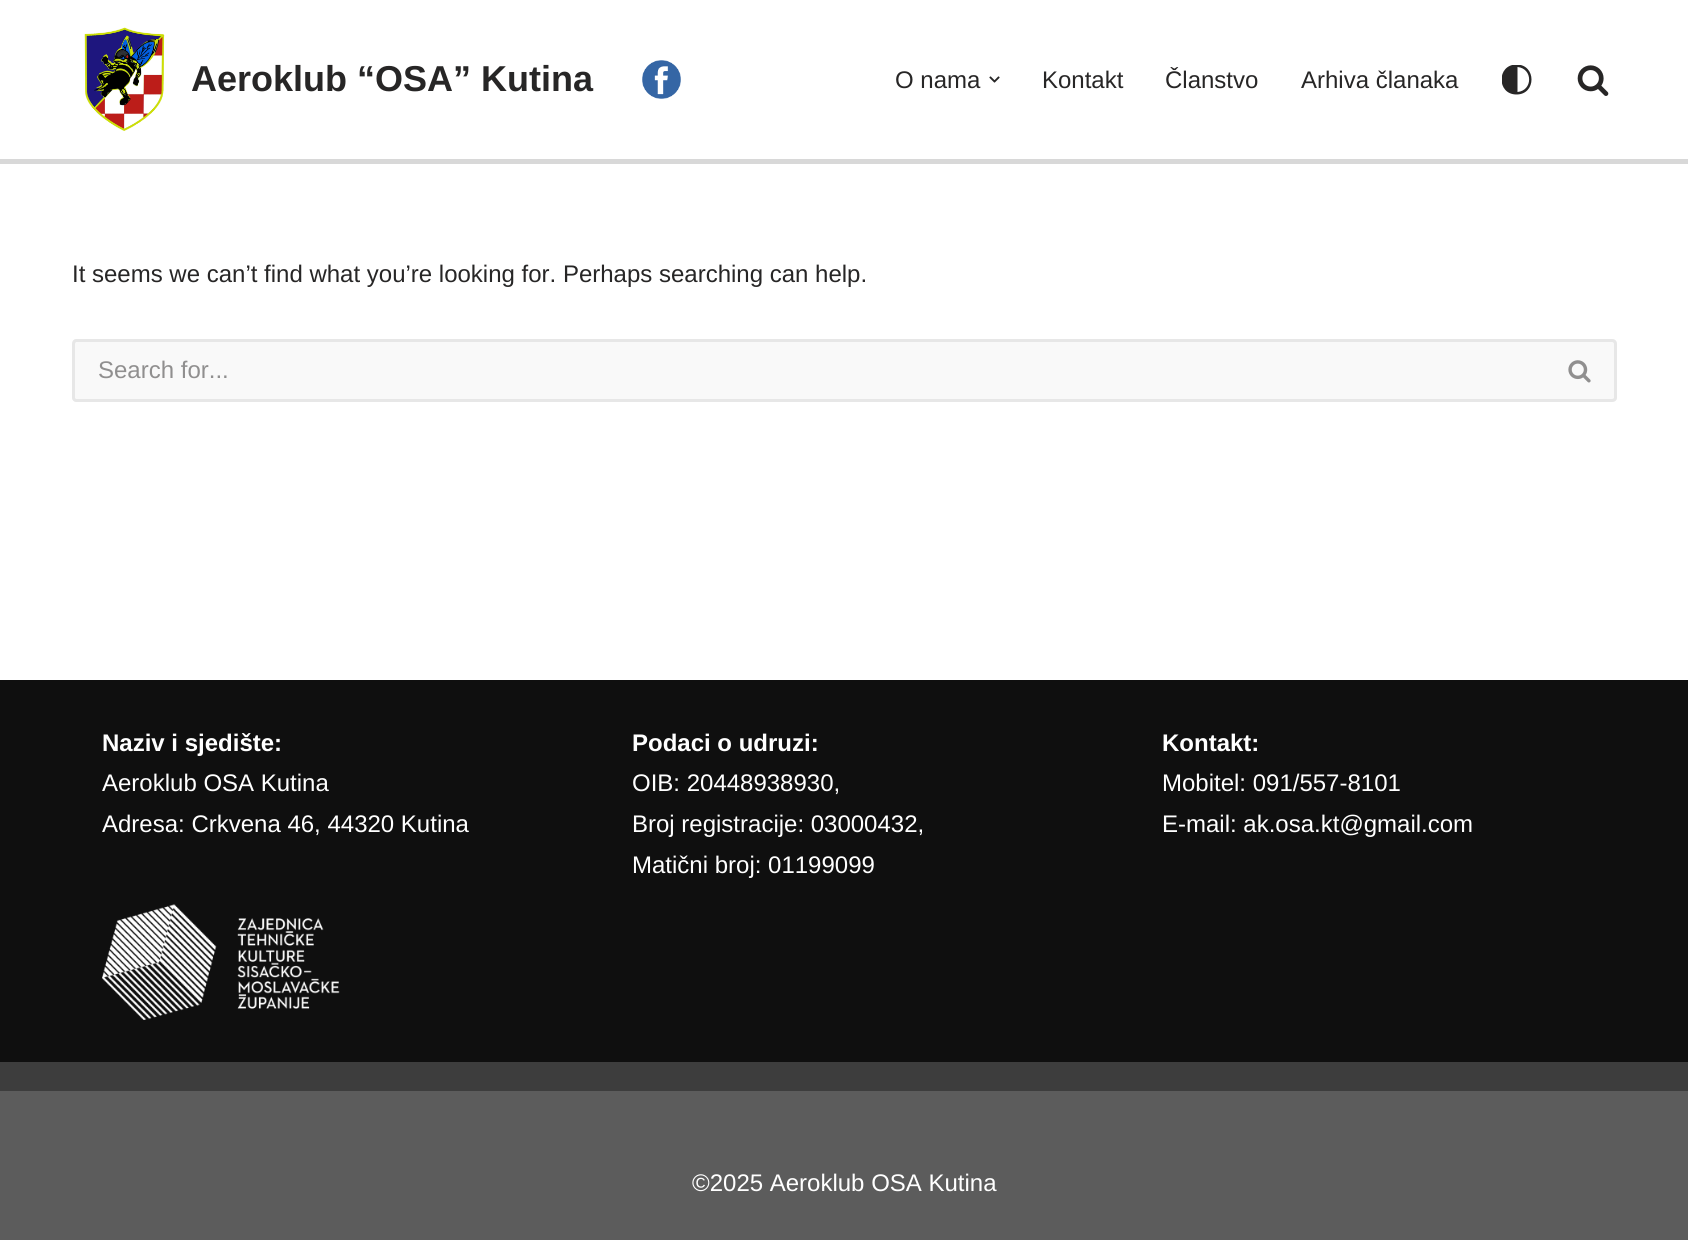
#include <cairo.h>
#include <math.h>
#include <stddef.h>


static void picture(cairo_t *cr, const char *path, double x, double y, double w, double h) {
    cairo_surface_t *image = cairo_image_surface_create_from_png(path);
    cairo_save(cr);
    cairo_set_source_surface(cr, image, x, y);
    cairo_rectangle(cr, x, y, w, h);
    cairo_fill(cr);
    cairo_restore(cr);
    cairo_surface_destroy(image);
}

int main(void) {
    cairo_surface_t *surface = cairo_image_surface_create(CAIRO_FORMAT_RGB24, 1688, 1240);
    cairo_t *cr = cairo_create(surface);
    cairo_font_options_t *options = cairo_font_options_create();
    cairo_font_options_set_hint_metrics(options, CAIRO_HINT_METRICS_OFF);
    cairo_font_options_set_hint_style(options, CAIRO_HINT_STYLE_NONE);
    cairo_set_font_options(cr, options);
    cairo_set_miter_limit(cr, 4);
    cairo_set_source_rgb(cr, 1, 1, 1);
    cairo_paint(cr);
    cairo_set_source_rgb(cr, 0.847, 0.847, 0.847);
    cairo_rectangle(cr, 0, 159, 1688, 5);
    cairo_fill(cr);
    picture(cr, "img1.png", 84, 27, 81, 104);
    cairo_select_font_face(cr, "Liberation Sans", CAIRO_FONT_SLANT_NORMAL, CAIRO_FONT_WEIGHT_BOLD);
    cairo_set_font_size(cr, 36);
    cairo_set_source_rgb(cr, 0.153, 0.149, 0.149);
    cairo_move_to(cr, 191, 91);
    cairo_show_text(cr, "Aeroklub “OSA” Kutina");
    picture(cr, "img2.png", 642, 60, 39, 39);
    cairo_select_font_face(cr, "Liberation Sans", CAIRO_FONT_SLANT_NORMAL, CAIRO_FONT_WEIGHT_NORMAL);
    cairo_set_font_size(cr, 24);
    cairo_move_to(cr, 895, 88);
    cairo_show_text(cr, "O nama");
    picture(cr, "img3.png", 989, 76, 11, 7);
    cairo_move_to(cr, 1042, 88);
    cairo_show_text(cr, "Kontakt");
    cairo_move_to(cr, 1165, 88);
    cairo_show_text(cr, "Članstvo");
    cairo_move_to(cr, 1301, 88);
    cairo_show_text(cr, "Arhiva članaka");
    cairo_save(cr);
    cairo_rectangle(cr, 1502, 65, 30, 30);
    cairo_clip(cr);
    cairo_new_path(cr);
    cairo_move_to(cr, 1516.5, 64.5);
    cairo_curve_to(cr, 1496.5, 64.5, 1496.5, 94.5, 1516.5, 94.5);
    cairo_curve_to(cr, 1536.5, 94.5, 1536.5, 64.5, 1516.5, 64.5);
    cairo_close_path(cr);
    cairo_move_to(cr, 1517.5, 92);
    cairo_line_to(cr, 1517.5, 67);
    cairo_curve_to(cr, 1533, 68.5, 1533, 90.5, 1517.5, 92);
    cairo_close_path(cr);
    cairo_fill(cr);
    cairo_restore(cr);
    picture(cr, "img4.png", 1577, 65, 32, 31);
    cairo_move_to(cr, 72, 282);
    cairo_show_text(cr, "It seems we can’t find what you’re looking for. Perhaps searching can help.");
    cairo_set_source_rgb(cr, 0.973, 0.973, 0.973);
    cairo_new_path(cr);
    cairo_move_to(cr, 77, 339);
    cairo_line_to(cr, 1545, 339);
    cairo_line_to(cr, 1545, 402);
    cairo_line_to(cr, 77, 402);
    cairo_curve_to(cr, 74, 402, 72, 400, 72, 397);
    cairo_line_to(cr, 72, 344);
    cairo_curve_to(cr, 72, 341, 74, 339, 77, 339);
    cairo_close_path(cr);
    cairo_fill(cr);
    cairo_set_source_rgb(cr, 0.906, 0.906, 0.906);
    cairo_set_fill_rule(cr, CAIRO_FILL_RULE_EVEN_ODD);
    cairo_new_path(cr);
    cairo_move_to(cr, 76, 339);
    cairo_line_to(cr, 1545, 339);
    cairo_line_to(cr, 1545, 402);
    cairo_line_to(cr, 76, 402);
    cairo_curve_to(cr, 74, 402, 72, 400, 72, 398);
    cairo_line_to(cr, 72, 344);
    cairo_curve_to(cr, 72, 341, 74, 339, 76, 339);
    cairo_close_path(cr);
    cairo_move_to(cr, 76, 342);
    cairo_line_to(cr, 1545, 342);
    cairo_line_to(cr, 1545, 399);
    cairo_line_to(cr, 76, 399);
    cairo_curve_to(cr, 76, 399, 75, 398, 75, 398);
    cairo_line_to(cr, 75, 344);
    cairo_curve_to(cr, 75, 343, 76, 342, 76, 342);
    cairo_close_path(cr);
    cairo_fill(cr);
    cairo_set_source_rgb(cr, 0.565, 0.561, 0.561);
    cairo_move_to(cr, 98, 378);
    cairo_show_text(cr, "Search for...");
    cairo_set_source_rgb(cr, 0.973, 0.973, 0.973);
    cairo_new_path(cr);
    cairo_move_to(cr, 1545, 339);
    cairo_line_to(cr, 1612, 339);
    cairo_curve_to(cr, 1615, 339, 1617, 341, 1617, 344);
    cairo_line_to(cr, 1617, 397);
    cairo_curve_to(cr, 1617, 400, 1615, 402, 1612, 402);
    cairo_line_to(cr, 1545, 402);
    cairo_close_path(cr);
    cairo_fill(cr);
    cairo_set_source_rgb(cr, 0.906, 0.906, 0.906);
    cairo_new_path(cr);
    cairo_move_to(cr, 1545, 339);
    cairo_line_to(cr, 1612, 339);
    cairo_curve_to(cr, 1615, 339, 1617, 341, 1617, 344);
    cairo_line_to(cr, 1617, 398);
    cairo_curve_to(cr, 1617, 400, 1615, 402, 1612, 402);
    cairo_line_to(cr, 1545, 402);
    cairo_close_path(cr);
    cairo_move_to(cr, 1545, 342);
    cairo_line_to(cr, 1612, 342);
    cairo_curve_to(cr, 1613, 342, 1614, 343, 1614, 344);
    cairo_line_to(cr, 1614, 398);
    cairo_curve_to(cr, 1614, 398, 1613, 399, 1612, 399);
    cairo_line_to(cr, 1545, 399);
    cairo_close_path(cr);
    cairo_fill(cr);
    picture(cr, "img5.png", 1568, 360, 23, 23);
    cairo_set_source_rgb(cr, 0.059, 0.059, 0.059);
    cairo_rectangle(cr, 0, 680, 1688, 382);
    cairo_fill(cr);
    cairo_select_font_face(cr, "Liberation Sans", CAIRO_FONT_SLANT_NORMAL, CAIRO_FONT_WEIGHT_BOLD);
    cairo_set_source_rgb(cr, 1, 1, 1);
    cairo_move_to(cr, 102, 751);
    cairo_show_text(cr, "Naziv i sjedište:");
    cairo_select_font_face(cr, "Liberation Sans", CAIRO_FONT_SLANT_NORMAL, CAIRO_FONT_WEIGHT_NORMAL);
    cairo_move_to(cr, 102, 791);
    cairo_show_text(cr, "Aeroklub OSA Kutina");
    cairo_move_to(cr, 102, 832);
    cairo_show_text(cr, "Adresa: Crkvena 46, 44320 Kutina");
    picture(cr, "img6.png", 102, 904, 238, 116);
    cairo_select_font_face(cr, "Liberation Sans", CAIRO_FONT_SLANT_NORMAL, CAIRO_FONT_WEIGHT_BOLD);
    cairo_move_to(cr, 632, 751);
    cairo_show_text(cr, "Podaci o udruzi:");
    cairo_select_font_face(cr, "Liberation Sans", CAIRO_FONT_SLANT_NORMAL, CAIRO_FONT_WEIGHT_NORMAL);
    cairo_move_to(cr, 632, 791);
    cairo_show_text(cr, "OIB: 20448938930,");
    cairo_move_to(cr, 632, 832);
    cairo_show_text(cr, "Broj registracije: 03000432,");
    cairo_move_to(cr, 632, 873);
    cairo_show_text(cr, "Matični broj: 01199099");
    cairo_select_font_face(cr, "Liberation Sans", CAIRO_FONT_SLANT_NORMAL, CAIRO_FONT_WEIGHT_BOLD);
    cairo_move_to(cr, 1162, 751);
    cairo_show_text(cr, "Kontakt:");
    cairo_select_font_face(cr, "Liberation Sans", CAIRO_FONT_SLANT_NORMAL, CAIRO_FONT_WEIGHT_NORMAL);
    cairo_move_to(cr, 1162, 791);
    cairo_show_text(cr, "Mobitel: 091/557-8101");
    cairo_move_to(cr, 1162, 832);
    cairo_show_text(cr, "E-mail: ak.osa.kt@gmail.com");
    cairo_set_source_rgb(cr, 0.361, 0.361, 0.361);
    cairo_rectangle(cr, 0, 1091, 1688, 149);
    cairo_fill(cr);
    cairo_set_source_rgb(cr, 0.239, 0.239, 0.239);
    cairo_rectangle(cr, 0, 1062, 1688, 29);
    cairo_fill(cr);
    cairo_set_source_rgb(cr, 1, 1, 1);
    cairo_move_to(cr, 692, 1191);
    cairo_show_text(cr, "©2025 Aeroklub OSA Kutina");
    cairo_surface_write_to_png(surface, "page.png");
    cairo_font_options_destroy(options);
    cairo_destroy(cr);
    cairo_surface_destroy(surface);
    return 0;
}
